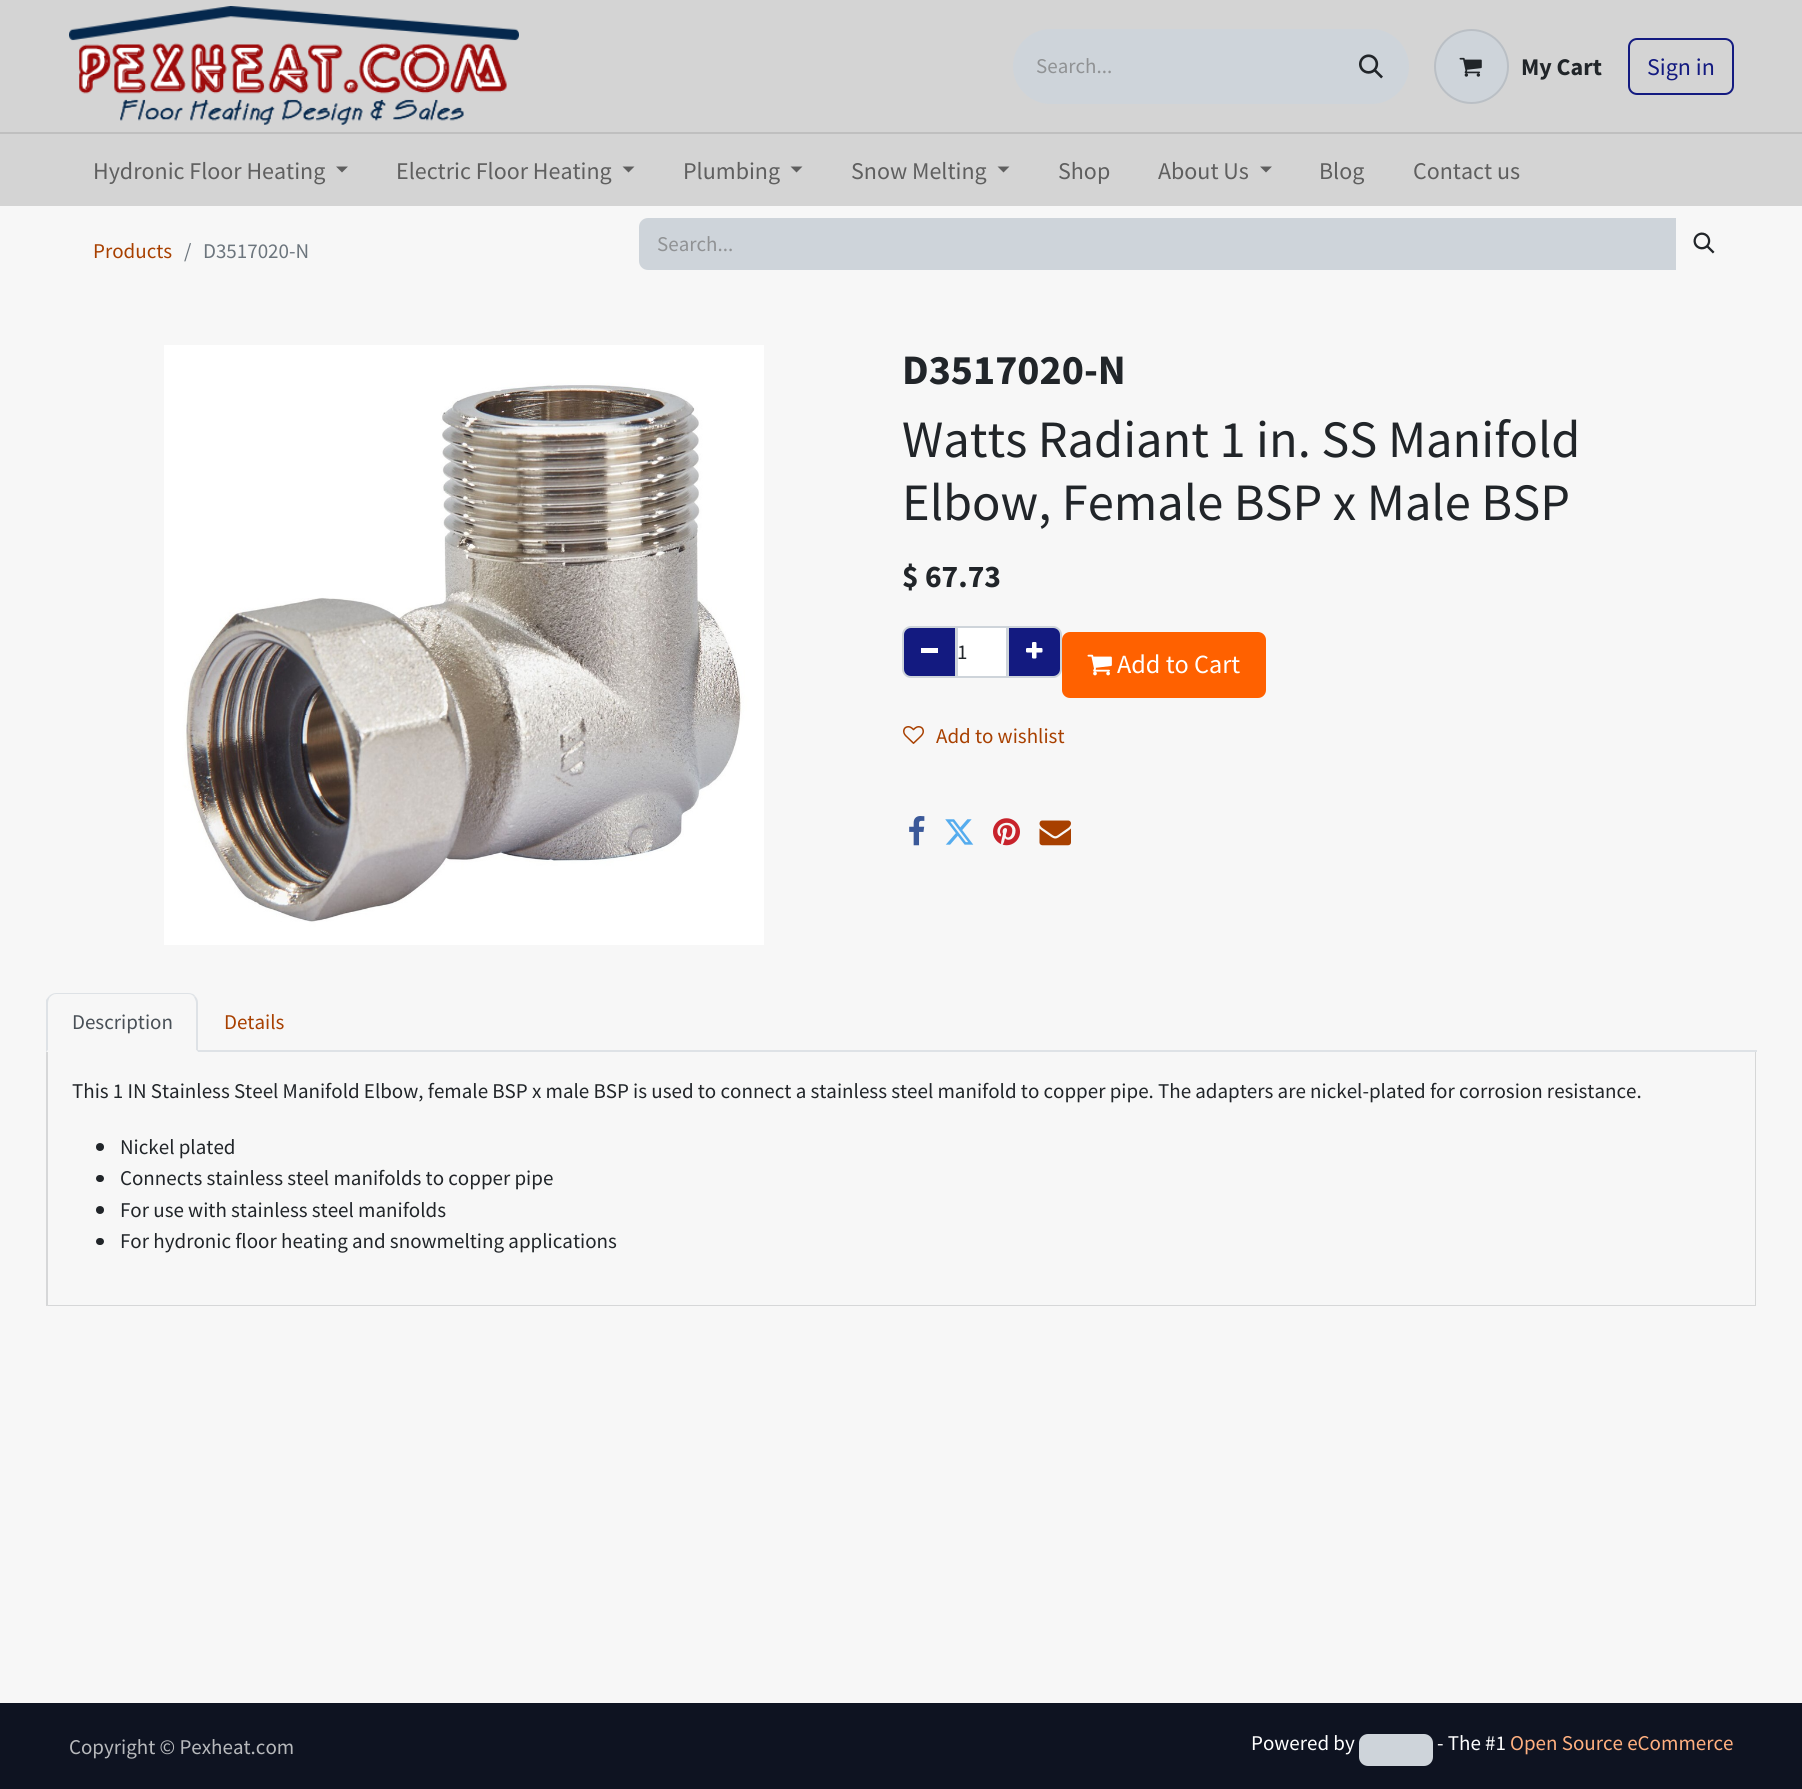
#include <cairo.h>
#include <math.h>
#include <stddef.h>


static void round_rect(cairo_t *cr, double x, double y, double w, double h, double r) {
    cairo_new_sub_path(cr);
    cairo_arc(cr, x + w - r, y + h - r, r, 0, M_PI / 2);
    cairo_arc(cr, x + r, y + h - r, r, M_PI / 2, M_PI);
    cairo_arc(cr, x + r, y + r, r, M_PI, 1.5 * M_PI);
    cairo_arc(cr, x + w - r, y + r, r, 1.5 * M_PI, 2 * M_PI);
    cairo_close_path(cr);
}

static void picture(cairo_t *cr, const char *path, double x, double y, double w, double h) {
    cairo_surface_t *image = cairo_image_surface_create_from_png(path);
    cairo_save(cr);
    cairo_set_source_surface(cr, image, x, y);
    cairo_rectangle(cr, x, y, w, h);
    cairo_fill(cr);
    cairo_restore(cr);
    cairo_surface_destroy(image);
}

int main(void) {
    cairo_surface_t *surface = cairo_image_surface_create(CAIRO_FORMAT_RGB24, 1802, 1789);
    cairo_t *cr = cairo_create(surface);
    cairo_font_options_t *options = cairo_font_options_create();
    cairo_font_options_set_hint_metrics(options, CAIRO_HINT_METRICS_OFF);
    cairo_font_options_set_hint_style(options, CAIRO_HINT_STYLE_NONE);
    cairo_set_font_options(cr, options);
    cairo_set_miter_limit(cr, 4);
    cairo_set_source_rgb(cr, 0.965, 0.965, 0.965);
    cairo_paint(cr);
    cairo_set_source_rgb(cr, 0.831, 0.831, 0.831);
    cairo_rectangle(cr, 0, 0, 1802, 206);
    cairo_fill(cr);
    picture(cr, "img1.png", 69, 6, 450, 119);
    cairo_set_source_rgb(cr, 0.808, 0.831, 0.855);
    cairo_new_path(cr);
    cairo_move_to(cr, 1050.5, 29);
    cairo_line_to(cr, 1335, 29);
    cairo_line_to(cr, 1335, 104);
    cairo_line_to(cr, 1050.5, 104);
    cairo_curve_to(cr, 1030, 104, 1013, 87, 1013, 66.5);
    cairo_curve_to(cr, 1013, 46, 1030, 29, 1050.5, 29);
    cairo_close_path(cr);
    cairo_fill(cr);
    cairo_select_font_face(cr, "Source Sans Pro", CAIRO_FONT_SLANT_NORMAL, CAIRO_FONT_WEIGHT_NORMAL);
    cairo_set_font_size(cr, 21);
    cairo_set_source_rgb(cr, 0.565, 0.573, 0.58);
    cairo_move_to(cr, 1036, 73);
    cairo_show_text(cr, "Search...");
    cairo_set_source_rgb(cr, 0.808, 0.831, 0.855);
    cairo_new_path(cr);
    cairo_move_to(cr, 1334, 29);
    cairo_line_to(cr, 1371.5, 29);
    cairo_curve_to(cr, 1392, 29, 1409, 46, 1409, 66.5);
    cairo_curve_to(cr, 1409, 87, 1392, 104, 1371.5, 104);
    cairo_line_to(cr, 1334, 104);
    cairo_close_path(cr);
    cairo_fill(cr);
    picture(cr, "img2.png", 1359, 54, 24, 25);
    cairo_arc(cr, 1471.5, 66.5, 37.5, 0, 2 * M_PI);
    cairo_fill(cr);
    cairo_arc(cr, 1471.5, 66.5, 36.5, 0, 2 * M_PI);
    cairo_set_source_rgba(cr, 0, 0, 0, 0.1);
    cairo_stroke(cr);
    picture(cr, "img3.png", 1459, 57, 23, 20);
    cairo_select_font_face(cr, "Source Sans Pro", CAIRO_FONT_SLANT_NORMAL, CAIRO_FONT_WEIGHT_BOLD);
    cairo_set_font_size(cr, 24);
    cairo_set_source_rgb(cr, 0.129, 0.145, 0.161);
    cairo_move_to(cr, 1521, 75);
    cairo_show_text(cr, "My Cart");
    round_rect(cr, 1629, 39, 104, 55, 8);
    cairo_set_source_rgb(cr, 0.075, 0.102, 0.502);
    cairo_stroke(cr);
    cairo_select_font_face(cr, "Source Sans Pro", CAIRO_FONT_SLANT_NORMAL, CAIRO_FONT_WEIGHT_NORMAL);
    cairo_move_to(cr, 1647, 75);
    cairo_show_text(cr, "Sign in");
    cairo_set_source_rgb(cr, 0.749, 0.749, 0.749);
    cairo_rectangle(cr, 0, 132, 1802, 2);
    cairo_fill(cr);
    cairo_set_source_rgb(cr, 0.373, 0.373, 0.373);
    cairo_move_to(cr, 93, 179);
    cairo_show_text(cr, "Hydronic Floor Heating");
    cairo_new_path(cr);
    cairo_move_to(cr, 336, 166.5);
    cairo_line_to(cr, 348, 166.5);
    cairo_line_to(cr, 342, 172.5);
    cairo_close_path(cr);
    cairo_fill(cr);
    cairo_move_to(cr, 396, 179);
    cairo_show_text(cr, "Electric Floor Heating");
    cairo_new_path(cr);
    cairo_move_to(cr, 622.5, 166.5);
    cairo_line_to(cr, 634.5, 166.5);
    cairo_line_to(cr, 628.5, 172.5);
    cairo_close_path(cr);
    cairo_fill(cr);
    cairo_move_to(cr, 683, 179);
    cairo_show_text(cr, "Plumbing");
    cairo_new_path(cr);
    cairo_move_to(cr, 790.5, 166.5);
    cairo_line_to(cr, 802.5, 166.5);
    cairo_line_to(cr, 796.5, 172.5);
    cairo_close_path(cr);
    cairo_fill(cr);
    cairo_move_to(cr, 851, 179);
    cairo_show_text(cr, "Snow Melting");
    cairo_new_path(cr);
    cairo_move_to(cr, 997.5, 166.5);
    cairo_line_to(cr, 1009.5, 166.5);
    cairo_line_to(cr, 1003.5, 172.5);
    cairo_close_path(cr);
    cairo_fill(cr);
    cairo_move_to(cr, 1058, 179);
    cairo_show_text(cr, "Shop");
    cairo_move_to(cr, 1158, 179);
    cairo_show_text(cr, "About Us");
    cairo_new_path(cr);
    cairo_move_to(cr, 1260, 166.5);
    cairo_line_to(cr, 1272, 166.5);
    cairo_line_to(cr, 1266, 172.5);
    cairo_close_path(cr);
    cairo_fill(cr);
    cairo_move_to(cr, 1319, 179);
    cairo_show_text(cr, "Blog");
    cairo_move_to(cr, 1413, 179);
    cairo_show_text(cr, "Contact us");
    cairo_set_font_size(cr, 21);
    cairo_set_source_rgb(cr, 0.659, 0.251, 0);
    cairo_move_to(cr, 93, 258);
    cairo_show_text(cr, "Products");
    cairo_set_source_rgb(cr, 0.424, 0.459, 0.49);
    cairo_move_to(cr, 184, 258);
    cairo_show_text(cr, "/");
    cairo_move_to(cr, 203, 258);
    cairo_show_text(cr, "D3517020-N");
    cairo_set_source_rgb(cr, 0.808, 0.831, 0.855);
    cairo_new_path(cr);
    cairo_move_to(cr, 648, 218);
    cairo_line_to(cr, 1676, 218);
    cairo_line_to(cr, 1676, 270);
    cairo_line_to(cr, 648, 270);
    cairo_curve_to(cr, 643, 270, 639, 266, 639, 261);
    cairo_line_to(cr, 639, 227);
    cairo_curve_to(cr, 639, 222, 643, 218, 648, 218);
    cairo_close_path(cr);
    cairo_fill(cr);
    cairo_set_source_rgb(cr, 0.565, 0.573, 0.58);
    cairo_move_to(cr, 657, 251);
    cairo_show_text(cr, "Search...");
    picture(cr, "img4.png", 1693, 232, 22, 22);
    picture(cr, "img5.png", 164, 345, 600, 600);
    cairo_select_font_face(cr, "Source Sans Pro", CAIRO_FONT_SLANT_NORMAL, CAIRO_FONT_WEIGHT_BOLD);
    cairo_set_font_size(cr, 42);
    cairo_set_source_rgb(cr, 0.129, 0.145, 0.161);
    cairo_move_to(cr, 902, 384);
    cairo_show_text(cr, "D3517020-N");
    cairo_select_font_face(cr, "Source Sans Pro", CAIRO_FONT_SLANT_NORMAL, CAIRO_FONT_WEIGHT_NORMAL);
    cairo_set_font_size(cr, 52.5);
    cairo_move_to(cr, 902, 457);
    cairo_show_text(cr, "Watts Radiant 1 in. SS Manifold");
    cairo_move_to(cr, 902, 520);
    cairo_show_text(cr, "Elbow, Female BSP x Male BSP");
    cairo_select_font_face(cr, "Source Sans Pro", CAIRO_FONT_SLANT_NORMAL, CAIRO_FONT_WEIGHT_BOLD);
    cairo_set_font_size(cr, 31.5);
    cairo_move_to(cr, 902, 587);
    cairo_show_text(cr, "$ 67.73");
    cairo_set_source_rgb(cr, 1, 1, 1);
    cairo_rectangle(cr, 957, 627, 50, 50);
    cairo_fill_preserve(cr);
    cairo_set_source_rgb(cr, 0.808, 0.831, 0.855);
    cairo_stroke(cr);
    cairo_set_source_rgb(cr, 0.075, 0.102, 0.502);
    cairo_new_path(cr);
    cairo_move_to(cr, 911, 627);
    cairo_line_to(cr, 956, 627);
    cairo_line_to(cr, 956, 677);
    cairo_line_to(cr, 911, 677);
    cairo_curve_to(cr, 906.5, 677, 903, 673.5, 903, 669);
    cairo_line_to(cr, 903, 635);
    cairo_curve_to(cr, 903, 630.5, 906.5, 627, 911, 627);
    cairo_close_path(cr);
    cairo_fill_preserve(cr);
    cairo_set_source_rgb(cr, 0.808, 0.831, 0.855);
    cairo_stroke(cr);
    cairo_set_source_rgb(cr, 1, 1, 1);
    cairo_rectangle(cr, 921, 648, 17, 5);
    cairo_fill(cr);
    cairo_select_font_face(cr, "Source Sans Pro", CAIRO_FONT_SLANT_NORMAL, CAIRO_FONT_WEIGHT_NORMAL);
    cairo_set_font_size(cr, 21);
    cairo_set_source_rgb(cr, 0.129, 0.145, 0.161);
    cairo_move_to(cr, 957, 659);
    cairo_show_text(cr, "1");
    cairo_set_source_rgb(cr, 0.075, 0.102, 0.502);
    cairo_new_path(cr);
    cairo_move_to(cr, 1008, 627);
    cairo_line_to(cr, 1053, 627);
    cairo_curve_to(cr, 1057.5, 627, 1061, 630.5, 1061, 635);
    cairo_line_to(cr, 1061, 669);
    cairo_curve_to(cr, 1061, 673.5, 1057.5, 677, 1053, 677);
    cairo_line_to(cr, 1008, 677);
    cairo_close_path(cr);
    cairo_fill_preserve(cr);
    cairo_set_source_rgb(cr, 0.808, 0.831, 0.855);
    cairo_stroke(cr);
    picture(cr, "img6.png", 1026, 642, 17, 17);
    cairo_set_source_rgb(cr, 1, 0.38, 0);
    round_rect(cr, 1063, 633, 202, 64, 7);
    cairo_fill_preserve(cr);
    cairo_stroke(cr);
    picture(cr, "img7.png", 1087, 654, 25, 22);
    cairo_set_font_size(cr, 26.25);
    cairo_set_source_rgb(cr, 1, 1, 1);
    cairo_move_to(cr, 1117, 673);
    cairo_show_text(cr, "Add to Cart");
    picture(cr, "img8.png", 903, 726, 21, 18);
    cairo_set_font_size(cr, 21);
    cairo_set_source_rgb(cr, 0.659, 0.251, 0);
    cairo_move_to(cr, 936, 743);
    cairo_show_text(cr, "Add to wishlist");
    picture(cr, "img9.png", 909, 816, 16, 30);
    picture(cr, "img10.png", 945, 819, 29, 26);
    picture(cr, "img11.png", 993, 818, 27, 28);
    picture(cr, "img12.png", 1039, 820, 32, 26);
    cairo_set_source_rgb(cr, 0.871, 0.886, 0.902);
    cairo_rectangle(cr, 198, 1050, 1559, 2);
    cairo_fill(cr);
    cairo_new_path(cr);
    cairo_move_to(cr, 56, 993);
    cairo_curve_to(cr, 54, 993, 51, 994, 49, 996);
    cairo_line_to(cr, 50, 997);
    cairo_curve_to(cr, 52, 995, 54, 994, 56, 994);
    cairo_line_to(cr, 188, 994);
    cairo_curve_to(cr, 191, 994, 193, 995, 194, 997);
    cairo_line_to(cr, 195, 996);
    cairo_curve_to(cr, 194, 994, 191, 993, 188, 993);
    cairo_close_path(cr);
    cairo_fill(cr);
    cairo_new_path(cr);
    cairo_move_to(cr, 198, 1052);
    cairo_line_to(cr, 198, 1003);
    cairo_curve_to(cr, 198, 1000, 197, 998, 195, 996);
    cairo_line_to(cr, 194, 997);
    cairo_curve_to(cr, 195, 999, 196, 1001, 196, 1003);
    cairo_line_to(cr, 196, 1050);
    cairo_close_path(cr);
    cairo_fill(cr);
    cairo_set_source_rgb(cr, 0.965, 0.965, 0.965);
    cairo_new_path(cr);
    cairo_move_to(cr, 198, 1052);
    cairo_line_to(cr, 196, 1050);
    cairo_line_to(cr, 48, 1050);
    cairo_line_to(cr, 46, 1052);
    cairo_close_path(cr);
    cairo_fill(cr);
    cairo_set_source_rgb(cr, 0.871, 0.886, 0.902);
    cairo_new_path(cr);
    cairo_move_to(cr, 46, 1052);
    cairo_line_to(cr, 46, 1000);
    cairo_line_to(cr, 49, 996);
    cairo_line_to(cr, 50, 997);
    cairo_curve_to(cr, 49, 998, 48, 1001, 48, 1003);
    cairo_line_to(cr, 48, 1050);
    cairo_close_path(cr);
    cairo_fill(cr);
    cairo_set_source_rgb(cr, 0.286, 0.314, 0.341);
    cairo_move_to(cr, 72, 1029);
    cairo_show_text(cr, "Description");
    cairo_set_source_rgb(cr, 0.659, 0.251, 0);
    cairo_move_to(cr, 224, 1029);
    cairo_show_text(cr, "Details");
    cairo_set_source_rgb(cr, 0.839, 0.843, 0.843);
    cairo_new_path(cr);
    cairo_move_to(cr, 1756, 1052);
    cairo_line_to(cr, 1756, 1306);
    cairo_line_to(cr, 1755, 1305);
    cairo_line_to(cr, 1755, 1052);
    cairo_close_path(cr);
    cairo_fill(cr);
    cairo_set_source_rgba(cr, 0.129, 0.145, 0.161, 0.15);
    cairo_new_path(cr);
    cairo_move_to(cr, 1756, 1306);
    cairo_line_to(cr, 46, 1306);
    cairo_line_to(cr, 48, 1305);
    cairo_line_to(cr, 1755, 1305);
    cairo_close_path(cr);
    cairo_fill(cr);
    cairo_new_path(cr);
    cairo_move_to(cr, 46, 1306);
    cairo_line_to(cr, 46, 1052);
    cairo_line_to(cr, 48, 1052);
    cairo_line_to(cr, 48, 1305);
    cairo_close_path(cr);
    cairo_fill(cr);
    cairo_set_source_rgb(cr, 0.129, 0.145, 0.161);
    cairo_move_to(cr, 72, 1098);
    cairo_show_text(cr, "This 1 IN Stainless Steel Manifold Elbow, female BSP x male BSP is used to connect a stainless steel manifold to copper pipe. The adapters are nickel-plated for corrosion resistance.");
    cairo_new_path(cr);
    cairo_arc(cr, 100, 1147, 4, 0, 2 * M_PI);
    cairo_fill(cr);
    cairo_move_to(cr, 120, 1154);
    cairo_show_text(cr, "Nickel plated");
    round_rect(cr, 96, 1175, 8, 7, 3.5);
    cairo_fill(cr);
    cairo_move_to(cr, 120, 1185);
    cairo_show_text(cr, "Connects stainless steel manifolds to copper pipe");
    cairo_new_path(cr);
    cairo_arc(cr, 100, 1210, 4, 0, 2 * M_PI);
    cairo_fill(cr);
    cairo_move_to(cr, 120, 1217);
    cairo_show_text(cr, "For use with stainless steel manifolds");
    round_rect(cr, 96, 1238, 8, 7, 3.5);
    cairo_fill(cr);
    cairo_move_to(cr, 120, 1248);
    cairo_show_text(cr, "For hydronic floor heating and snowmelting applications");
    cairo_set_source_rgb(cr, 0.055, 0.078, 0.129);
    cairo_rectangle(cr, 0, 1703, 1802, 86);
    cairo_fill(cr);
    cairo_set_source_rgb(cr, 0.718, 0.725, 0.737);
    cairo_move_to(cr, 69, 1754);
    cairo_show_text(cr, "Copyright © Pexheat.com");
    cairo_set_source_rgb(cr, 1, 1, 1);
    cairo_move_to(cr, 1251, 1750);
    cairo_show_text(cr, "Powered by");
    cairo_set_source_rgb(cr, 0.808, 0.831, 0.855);
    round_rect(cr, 1359, 1734, 74, 32, 9);
    cairo_fill(cr);
    cairo_set_source_rgb(cr, 1, 1, 1);
    cairo_move_to(cr, 1437, 1750);
    cairo_show_text(cr, "- The #1");
    cairo_set_source_rgb(cr, 1, 0.69, 0.502);
    cairo_move_to(cr, 1510, 1750);
    cairo_show_text(cr, "Open Source eCommerce");
    cairo_surface_write_to_png(surface, "page.png");
    cairo_font_options_destroy(options);
    cairo_destroy(cr);
    cairo_surface_destroy(surface);
    return 0;
}
